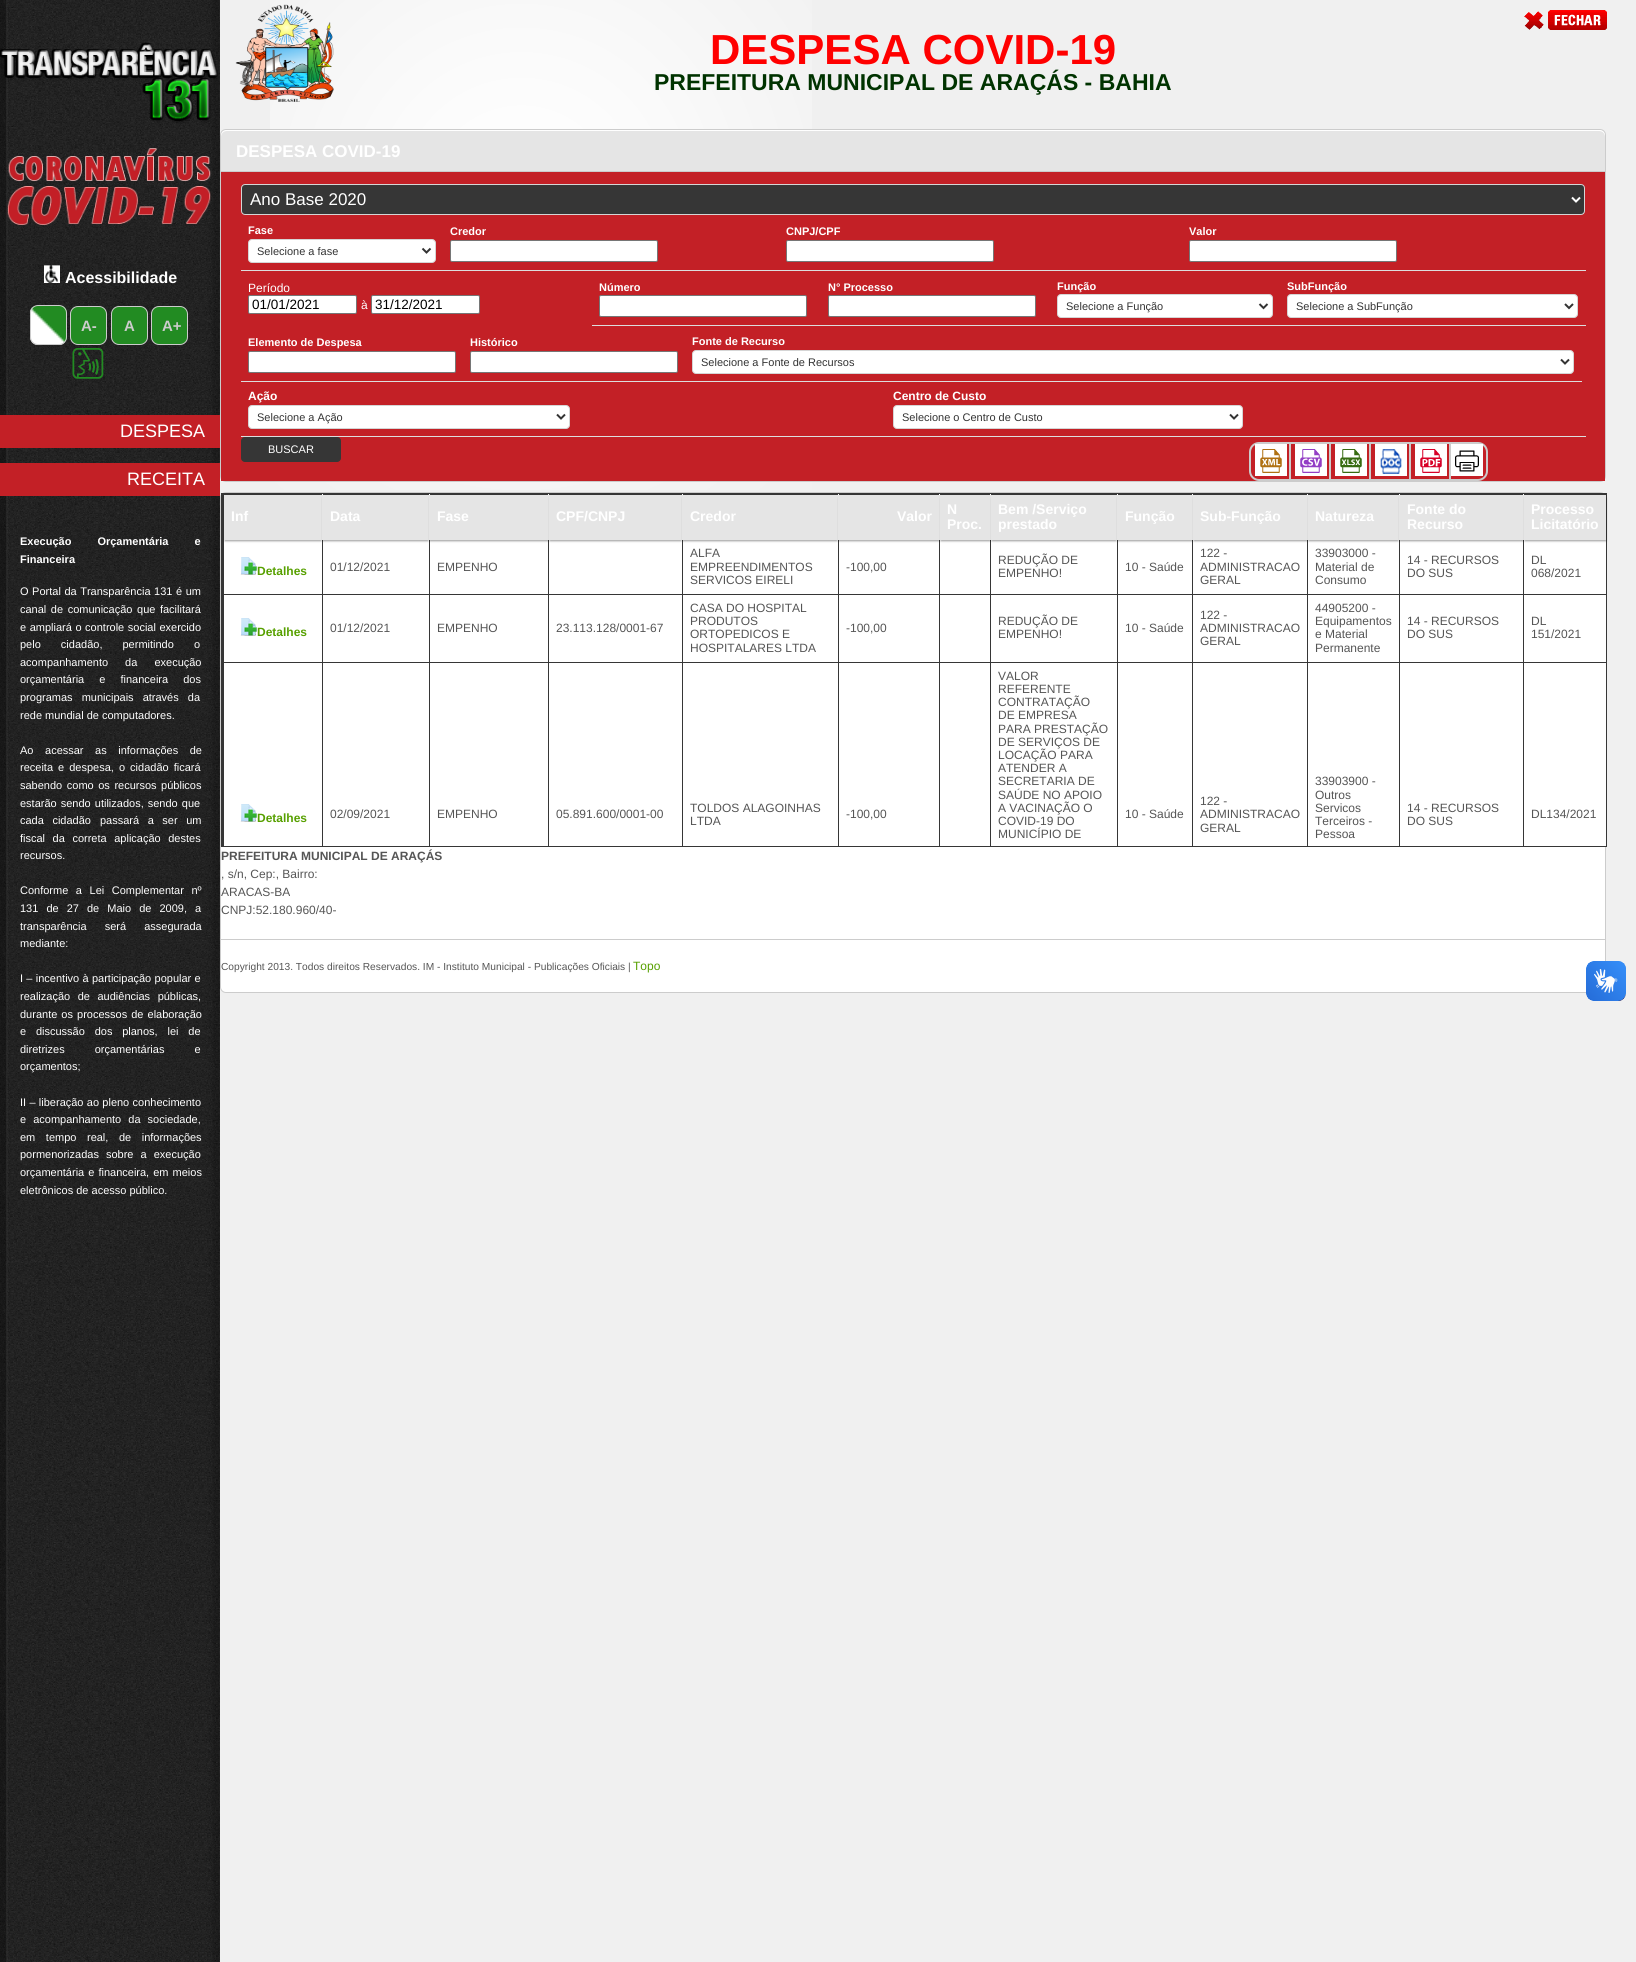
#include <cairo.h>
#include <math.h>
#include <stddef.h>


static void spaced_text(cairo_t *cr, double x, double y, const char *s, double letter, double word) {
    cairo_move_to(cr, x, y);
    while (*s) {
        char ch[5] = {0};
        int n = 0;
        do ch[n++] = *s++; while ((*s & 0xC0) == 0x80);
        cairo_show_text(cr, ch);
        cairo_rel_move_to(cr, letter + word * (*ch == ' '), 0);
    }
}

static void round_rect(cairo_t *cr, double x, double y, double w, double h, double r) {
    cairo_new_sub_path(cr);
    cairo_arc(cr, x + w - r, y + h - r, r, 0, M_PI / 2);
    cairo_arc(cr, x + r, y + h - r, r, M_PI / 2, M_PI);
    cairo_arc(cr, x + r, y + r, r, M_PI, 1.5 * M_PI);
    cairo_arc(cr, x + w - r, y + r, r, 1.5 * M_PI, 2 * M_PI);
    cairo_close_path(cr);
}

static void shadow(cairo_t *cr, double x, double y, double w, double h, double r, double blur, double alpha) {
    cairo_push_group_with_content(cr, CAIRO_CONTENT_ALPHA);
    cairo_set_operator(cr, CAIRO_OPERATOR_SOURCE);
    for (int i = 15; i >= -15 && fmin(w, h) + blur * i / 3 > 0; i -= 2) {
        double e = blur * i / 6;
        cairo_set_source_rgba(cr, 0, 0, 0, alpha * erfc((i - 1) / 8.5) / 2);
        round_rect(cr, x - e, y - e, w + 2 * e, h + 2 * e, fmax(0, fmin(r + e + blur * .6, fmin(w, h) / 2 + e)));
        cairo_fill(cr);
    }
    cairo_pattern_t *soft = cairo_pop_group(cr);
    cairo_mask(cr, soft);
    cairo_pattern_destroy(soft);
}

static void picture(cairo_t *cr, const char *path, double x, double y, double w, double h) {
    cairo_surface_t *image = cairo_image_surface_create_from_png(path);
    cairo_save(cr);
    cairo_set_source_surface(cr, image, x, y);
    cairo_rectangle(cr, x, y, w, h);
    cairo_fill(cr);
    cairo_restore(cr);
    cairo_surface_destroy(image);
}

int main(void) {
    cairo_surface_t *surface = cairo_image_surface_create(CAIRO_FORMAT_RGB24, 1636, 1962);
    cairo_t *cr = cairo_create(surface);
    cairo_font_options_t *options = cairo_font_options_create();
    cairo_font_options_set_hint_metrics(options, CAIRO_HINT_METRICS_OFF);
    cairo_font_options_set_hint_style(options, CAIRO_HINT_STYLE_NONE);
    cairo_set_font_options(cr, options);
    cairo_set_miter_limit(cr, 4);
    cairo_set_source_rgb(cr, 0.941, 0.941, 0.941);
    cairo_paint(cr);
    picture(cr, "img1.png", 0, 0, 220, 1962);
    picture(cr, "img2.png", 270, 0, 542, 490);
    picture(cr, "img3.png", 0, 42, 218, 183);
    picture(cr, "img4.png", 44, 265, 16, 18);
    cairo_select_font_face(cr, "Liberation Sans", CAIRO_FONT_SLANT_NORMAL, CAIRO_FONT_WEIGHT_BOLD);
    cairo_set_font_size(cr, 16);
    cairo_set_source_rgb(cr, 1, 1, 1);
    cairo_move_to(cr, 65, 283);
    cairo_show_text(cr, "Acessibilidade");
    picture(cr, "img5.png", 30, 306, 37, 39);
    round_rect(cr, 30.5, 305.5, 36, 39, 7.5);
    cairo_set_source_rgb(cr, 0.8, 0.8, 0.8);
    cairo_set_line_width(cr, 1);
    cairo_stroke(cr);
    cairo_set_source_rgb(cr, 0.133, 0.545, 0.133);
    round_rect(cr, 70.5, 306.5, 36, 38, 7.5);
    cairo_fill_preserve(cr);
    cairo_set_source_rgb(cr, 0.8, 0.8, 0.8);
    cairo_stroke(cr);
    cairo_set_font_size(cr, 15);
    cairo_move_to(cr, 81, 331);
    cairo_show_text(cr, "A-");
    cairo_set_source_rgb(cr, 0.133, 0.545, 0.133);
    round_rect(cr, 111.5, 306.5, 36, 38, 7.5);
    cairo_fill_preserve(cr);
    cairo_set_source_rgb(cr, 0.8, 0.8, 0.8);
    cairo_stroke(cr);
    cairo_move_to(cr, 124, 331);
    cairo_show_text(cr, "A");
    cairo_set_source_rgb(cr, 0.133, 0.545, 0.133);
    round_rect(cr, 151.5, 306.5, 36, 38, 7.5);
    cairo_fill_preserve(cr);
    cairo_set_source_rgb(cr, 0.8, 0.8, 0.8);
    cairo_stroke(cr);
    cairo_move_to(cr, 162, 331);
    cairo_show_text(cr, "A+");
    picture(cr, "img6.png", 72, 348, 32, 31);
    cairo_set_source_rgb(cr, 0.765, 0.125, 0.149);
    cairo_rectangle(cr, 0, 415, 220, 33);
    cairo_fill(cr);
    cairo_select_font_face(cr, "Liberation Sans", CAIRO_FONT_SLANT_NORMAL, CAIRO_FONT_WEIGHT_NORMAL);
    cairo_set_font_size(cr, 18);
    cairo_set_source_rgb(cr, 1, 1, 1);
    cairo_move_to(cr, 120, 437);
    cairo_show_text(cr, "DESPESA");
    cairo_set_source_rgb(cr, 0.765, 0.125, 0.149);
    cairo_rectangle(cr, 0, 463, 220, 33);
    cairo_fill(cr);
    cairo_set_source_rgb(cr, 1, 1, 1);
    cairo_move_to(cr, 127, 485);
    cairo_show_text(cr, "RECEITA");
    cairo_select_font_face(cr, "Liberation Sans", CAIRO_FONT_SLANT_NORMAL, CAIRO_FONT_WEIGHT_BOLD);
    cairo_set_font_size(cr, 11);
    spaced_text(cr, 20, 545, "Execução Orçamentária e", 0, 23);
    cairo_move_to(cr, 20, 563);
    cairo_show_text(cr, "Financeira");
    cairo_select_font_face(cr, "Liberation Sans", CAIRO_FONT_SLANT_NORMAL, CAIRO_FONT_WEIGHT_NORMAL);
    spaced_text(cr, 20, 595, "O Portal da Transparência 131 é um", 0, 0.5);
    spaced_text(cr, 20, 613, "canal de comunicação que facilitará", 0, 1.5);
    spaced_text(cr, 20, 631, "e ampliará o controle social exercido", 0, 0.5);
    spaced_text(cr, 20, 648, "pelo cidadão, permitindo o", 0, 17);
    spaced_text(cr, 20, 666, "acompanhamento da execução", 0, 14);
    spaced_text(cr, 20, 683, "orçamentária e financeira dos", 0, 12);
    spaced_text(cr, 20, 701, "programas municipais através da", 0, 6);
    cairo_move_to(cr, 20, 719);
    cairo_show_text(cr, "rede mundial de computadores.");
    spaced_text(cr, 20, 754, "Ao acessar as informações de", 0, 8.5);
    spaced_text(cr, 20, 771, "receita e despesa, o cidadão ficará", 0, 2);
    spaced_text(cr, 20, 789, "sabendo como os recursos públicos", 0, 1.5);
    spaced_text(cr, 20, 807, "estarão sendo utilizados, sendo que", 0, 1);
    spaced_text(cr, 20, 824, "cada cidadão", 0, 5.5);
    spaced_text(cr, 100, 824, "passará a ser um", 0, 5.5);
    spaced_text(cr, 20, 842, "fiscal da correta aplicação destes", 0, 4.5);
    cairo_move_to(cr, 20, 859);
    cairo_show_text(cr, "recursos.");
    spaced_text(cr, 20, 894, "Conforme a Lei Complementar nº", 0, 4.5);
    spaced_text(cr, 20, 912, "131 de 27 de Maio de 2009, a", 0, 5);
    spaced_text(cr, 20, 930, "transparência será assegurada", 0, 15);
    cairo_move_to(cr, 20, 947);
    cairo_show_text(cr, "mediante:");
    spaced_text(cr, 20, 982, "I – incentivo à participação popular e", 0, 0.25);
    spaced_text(cr, 20, 1000, "realização de audiências públicas,", 0, 4.5);
    spaced_text(cr, 20, 1018, "durante os processos de elaboração", 0, 1);
    spaced_text(cr, 20, 1035, "e discussão dos planos, lei de", 0, 6.75);
    spaced_text(cr, 20, 1053, "diretrizes orçamentárias e", 0, 27);
    cairo_move_to(cr, 20, 1070);
    cairo_show_text(cr, "orçamentos;");
    spaced_text(cr, 20, 1106, "II – liberação ao pleno conhecimento", 0, 0.25);
    spaced_text(cr, 20, 1123, "e acompanhamento da sociedade,", 0, 4);
    spaced_text(cr, 20, 1141, "em tempo real, de informações", 0, 7.5);
    spaced_text(cr, 20, 1158, "pormenorizadas sobre a execução", 0, 4);
    spaced_text(cr, 20, 1176, "orçamentária e financeira, em meios", 0, 1);
    cairo_move_to(cr, 20, 1194);
    cairo_show_text(cr, "eletrônicos de acesso público.");
    round_rect(cr, 220.5, 492.5, 1385, 500, 5.5);
    cairo_fill_preserve(cr);
    cairo_set_source_rgb(cr, 0.8, 0.8, 0.8);
    cairo_stroke(cr);
    picture(cr, "img7.png", 1586, 961, 40, 40);
    picture(cr, "img8.png", 1586, 961, 40, 40);
    picture(cr, "img9.png", 235, 4, 99, 98);
    picture(cr, "img10.png", 1524, 10, 83, 20);
    cairo_select_font_face(cr, "Liberation Sans", CAIRO_FONT_SLANT_NORMAL, CAIRO_FONT_WEIGHT_BOLD);
    cairo_set_font_size(cr, 42);
    cairo_set_source_rgb(cr, 1, 0, 0);
    cairo_move_to(cr, 710, 64);
    cairo_show_text(cr, "DESPESA COVID-19");
    cairo_set_font_size(cr, 23);
    cairo_set_source_rgb(cr, 0, 0.2, 0);
    cairo_move_to(cr, 654, 90);
    cairo_show_text(cr, "PREFEITURA MUNICIPAL DE ARAÇÁS - BAHIA");
    cairo_set_source_rgb(cr, 1, 1, 1);
    round_rect(cr, 220.5, 129.5, 1385, 352, 5.5);
    cairo_fill_preserve(cr);
    cairo_set_source_rgb(cr, 0.8, 0.8, 0.8);
    cairo_stroke(cr);
    cairo_set_source_rgb(cr, 0.898, 0.898, 0.898);
    cairo_new_path(cr);
    cairo_move_to(cr, 227, 131);
    cairo_line_to(cr, 1599, 131);
    cairo_curve_to(cr, 1602.5, 131, 1605, 133.5, 1605, 137);
    cairo_line_to(cr, 1605, 171);
    cairo_line_to(cr, 221, 171);
    cairo_line_to(cr, 221, 137);
    cairo_curve_to(cr, 221, 133.5, 223.5, 131, 227, 131);
    cairo_close_path(cr);
    cairo_fill(cr);
    cairo_set_font_size(cr, 17);
    cairo_set_source_rgb(cr, 1, 1, 1);
    cairo_move_to(cr, 236, 157);
    cairo_show_text(cr, "DESPESA COVID-19");
    cairo_set_source_rgb(cr, 0.765, 0.125, 0.149);
    cairo_rectangle(cr, 221, 172, 1384, 309);
    cairo_fill(cr);
    cairo_set_source_rgb(cr, 0.8, 0.8, 0.8);
    cairo_rectangle(cr, 221, 171, 1384, 1);
    cairo_fill(cr);
    cairo_set_source_rgb(cr, 0.212, 0.212, 0.212);
    round_rect(cr, 241.5, 184.5, 1343, 30, 3.5);
    cairo_fill_preserve(cr);
    cairo_set_source_rgb(cr, 0.835, 0.835, 0.835);
    cairo_stroke(cr);
    cairo_new_path(cr);
    cairo_move_to(cr, 1572, 197.5);
    cairo_line_to(cr, 1576, 201.5);
    cairo_line_to(cr, 1580, 197.5);
    cairo_set_source_rgb(cr, 1, 1, 1);
    cairo_set_line_width(cr, 2);
    cairo_stroke(cr);
    cairo_select_font_face(cr, "Liberation Sans", CAIRO_FONT_SLANT_NORMAL, CAIRO_FONT_WEIGHT_NORMAL);
    cairo_move_to(cr, 250, 205);
    cairo_show_text(cr, "Ano Base 2020");
    cairo_select_font_face(cr, "Liberation Sans", CAIRO_FONT_SLANT_NORMAL, CAIRO_FONT_WEIGHT_BOLD);
    cairo_set_font_size(cr, 11);
    cairo_move_to(cr, 248, 234);
    cairo_show_text(cr, "Fase");
    round_rect(cr, 248.5, 239.5, 187, 23, 3.5);
    cairo_fill_preserve(cr);
    cairo_set_source_rgb(cr, 0.835, 0.835, 0.835);
    cairo_set_line_width(cr, 1);
    cairo_stroke(cr);
    cairo_new_path(cr);
    cairo_move_to(cr, 422.5, 248.5);
    cairo_line_to(cr, 426.5, 252.5);
    cairo_line_to(cr, 430.5, 248.5);
    cairo_set_source_rgb(cr, 0.2, 0.2, 0.2);
    cairo_set_line_width(cr, 2);
    cairo_stroke(cr);
    cairo_select_font_face(cr, "Liberation Sans", CAIRO_FONT_SLANT_NORMAL, CAIRO_FONT_WEIGHT_NORMAL);
    cairo_move_to(cr, 257, 255);
    cairo_show_text(cr, "Selecione a fase");
    cairo_select_font_face(cr, "Liberation Sans", CAIRO_FONT_SLANT_NORMAL, CAIRO_FONT_WEIGHT_BOLD);
    cairo_set_source_rgb(cr, 1, 1, 1);
    cairo_move_to(cr, 450, 235);
    cairo_show_text(cr, "Credor");
    round_rect(cr, 450.5, 240.5, 207, 21, 1.5);
    cairo_fill_preserve(cr);
    cairo_set_source_rgb(cr, 0.463, 0.463, 0.463);
    cairo_set_line_width(cr, 1);
    cairo_stroke(cr);
    cairo_set_source_rgb(cr, 1, 1, 1);
    cairo_move_to(cr, 786, 235);
    cairo_show_text(cr, "CNPJ/CPF");
    round_rect(cr, 786.5, 240.5, 207, 21, 1.5);
    cairo_fill_preserve(cr);
    cairo_set_source_rgb(cr, 0.463, 0.463, 0.463);
    cairo_stroke(cr);
    cairo_set_source_rgb(cr, 1, 1, 1);
    cairo_move_to(cr, 1189, 235);
    cairo_show_text(cr, "Valor");
    round_rect(cr, 1189.5, 240.5, 207, 21, 1.5);
    cairo_fill_preserve(cr);
    cairo_set_source_rgb(cr, 0.463, 0.463, 0.463);
    cairo_stroke(cr);
    cairo_set_source_rgb(cr, 0.867, 0.867, 0.867);
    cairo_rectangle(cr, 241, 270, 1345, 1);
    cairo_fill(cr);
    cairo_select_font_face(cr, "Liberation Sans", CAIRO_FONT_SLANT_NORMAL, CAIRO_FONT_WEIGHT_NORMAL);
    cairo_set_font_size(cr, 12);
    cairo_set_source_rgb(cr, 1, 1, 1);
    cairo_move_to(cr, 248, 292);
    cairo_show_text(cr, "Período");
    round_rect(cr, 248.5, 295.5, 108, 18, 1.5);
    cairo_fill_preserve(cr);
    cairo_set_source_rgb(cr, 0.463, 0.463, 0.463);
    cairo_stroke(cr);
    cairo_set_font_size(cr, 13.5);
    cairo_set_source_rgb(cr, 0, 0, 0);
    cairo_move_to(cr, 252, 309);
    cairo_show_text(cr, "01/01/2021");
    cairo_set_font_size(cr, 12);
    cairo_set_source_rgb(cr, 1, 1, 1);
    cairo_move_to(cr, 361, 309);
    cairo_show_text(cr, "à");
    round_rect(cr, 371.5, 295.5, 108, 18, 1.5);
    cairo_fill_preserve(cr);
    cairo_set_source_rgb(cr, 0.463, 0.463, 0.463);
    cairo_stroke(cr);
    cairo_set_font_size(cr, 13.5);
    cairo_set_source_rgb(cr, 0, 0, 0);
    cairo_move_to(cr, 375, 309);
    cairo_show_text(cr, "31/12/2021");
    cairo_select_font_face(cr, "Liberation Sans", CAIRO_FONT_SLANT_NORMAL, CAIRO_FONT_WEIGHT_BOLD);
    cairo_set_font_size(cr, 11);
    cairo_set_source_rgb(cr, 1, 1, 1);
    cairo_move_to(cr, 599, 291);
    cairo_show_text(cr, "Número");
    round_rect(cr, 599.5, 295.5, 207, 21, 1.5);
    cairo_fill_preserve(cr);
    cairo_set_source_rgb(cr, 0.463, 0.463, 0.463);
    cairo_stroke(cr);
    cairo_set_source_rgb(cr, 1, 1, 1);
    cairo_move_to(cr, 828, 291);
    cairo_show_text(cr, "N° Processo");
    round_rect(cr, 828.5, 295.5, 207, 21, 1.5);
    cairo_fill_preserve(cr);
    cairo_set_source_rgb(cr, 0.463, 0.463, 0.463);
    cairo_stroke(cr);
    cairo_set_source_rgb(cr, 1, 1, 1);
    cairo_move_to(cr, 1057, 290);
    cairo_show_text(cr, "Função");
    round_rect(cr, 1057.5, 294.5, 215, 23, 3.5);
    cairo_fill_preserve(cr);
    cairo_set_source_rgb(cr, 0.835, 0.835, 0.835);
    cairo_stroke(cr);
    cairo_new_path(cr);
    cairo_move_to(cr, 1259.5, 304);
    cairo_line_to(cr, 1263.5, 308);
    cairo_line_to(cr, 1267.5, 304);
    cairo_set_source_rgb(cr, 0.2, 0.2, 0.2);
    cairo_set_line_width(cr, 2);
    cairo_stroke(cr);
    cairo_select_font_face(cr, "Liberation Sans", CAIRO_FONT_SLANT_NORMAL, CAIRO_FONT_WEIGHT_NORMAL);
    cairo_move_to(cr, 1066, 310);
    cairo_show_text(cr, "Selecione a Função");
    cairo_set_source_rgb(cr, 0.867, 0.867, 0.867);
    cairo_rectangle(cr, 592, 325, 994, 1);
    cairo_fill(cr);
    cairo_select_font_face(cr, "Liberation Sans", CAIRO_FONT_SLANT_NORMAL, CAIRO_FONT_WEIGHT_BOLD);
    cairo_set_source_rgb(cr, 1, 1, 1);
    cairo_move_to(cr, 1287, 290);
    cairo_show_text(cr, "SubFunção");
    round_rect(cr, 1287.5, 294.5, 290, 23, 3.5);
    cairo_fill_preserve(cr);
    cairo_set_source_rgb(cr, 0.835, 0.835, 0.835);
    cairo_set_line_width(cr, 1);
    cairo_stroke(cr);
    cairo_new_path(cr);
    cairo_move_to(cr, 1565, 304);
    cairo_line_to(cr, 1569, 308);
    cairo_line_to(cr, 1573, 304);
    cairo_set_source_rgb(cr, 0.2, 0.2, 0.2);
    cairo_set_line_width(cr, 2);
    cairo_stroke(cr);
    cairo_select_font_face(cr, "Liberation Sans", CAIRO_FONT_SLANT_NORMAL, CAIRO_FONT_WEIGHT_NORMAL);
    cairo_move_to(cr, 1296, 310);
    cairo_show_text(cr, "Selecione a SubFunção");
    cairo_select_font_face(cr, "Liberation Sans", CAIRO_FONT_SLANT_NORMAL, CAIRO_FONT_WEIGHT_BOLD);
    cairo_set_source_rgb(cr, 1, 1, 1);
    cairo_move_to(cr, 248, 346);
    cairo_show_text(cr, "Elemento de Despesa");
    round_rect(cr, 248.5, 351.5, 207, 21, 1.5);
    cairo_fill_preserve(cr);
    cairo_set_source_rgb(cr, 0.463, 0.463, 0.463);
    cairo_set_line_width(cr, 1);
    cairo_stroke(cr);
    cairo_set_source_rgb(cr, 1, 1, 1);
    cairo_move_to(cr, 470, 346);
    cairo_show_text(cr, "Histórico");
    round_rect(cr, 470.5, 351.5, 207, 21, 1.5);
    cairo_fill_preserve(cr);
    cairo_set_source_rgb(cr, 0.463, 0.463, 0.463);
    cairo_stroke(cr);
    cairo_set_source_rgb(cr, 0.867, 0.867, 0.867);
    cairo_rectangle(cr, 241, 381, 1341, 1);
    cairo_fill(cr);
    cairo_set_source_rgb(cr, 1, 1, 1);
    cairo_move_to(cr, 692, 345);
    cairo_show_text(cr, "Fonte de Recurso");
    round_rect(cr, 692.5, 350.5, 881, 23, 3.5);
    cairo_fill_preserve(cr);
    cairo_set_source_rgb(cr, 0.835, 0.835, 0.835);
    cairo_stroke(cr);
    cairo_new_path(cr);
    cairo_move_to(cr, 1561, 359.5);
    cairo_line_to(cr, 1565, 363.5);
    cairo_line_to(cr, 1569, 359.5);
    cairo_set_source_rgb(cr, 0.2, 0.2, 0.2);
    cairo_set_line_width(cr, 2);
    cairo_stroke(cr);
    cairo_select_font_face(cr, "Liberation Sans", CAIRO_FONT_SLANT_NORMAL, CAIRO_FONT_WEIGHT_NORMAL);
    cairo_move_to(cr, 701, 366);
    cairo_show_text(cr, "Selecione a Fonte de Recursos");
    cairo_select_font_face(cr, "Liberation Sans", CAIRO_FONT_SLANT_NORMAL, CAIRO_FONT_WEIGHT_BOLD);
    cairo_set_font_size(cr, 12);
    cairo_set_source_rgb(cr, 1, 1, 1);
    cairo_move_to(cr, 248, 400);
    cairo_show_text(cr, "Ação");
    round_rect(cr, 248.5, 405.5, 321, 23, 3.5);
    cairo_fill_preserve(cr);
    cairo_set_source_rgb(cr, 0.835, 0.835, 0.835);
    cairo_set_line_width(cr, 1);
    cairo_stroke(cr);
    cairo_new_path(cr);
    cairo_move_to(cr, 557, 414.5);
    cairo_line_to(cr, 561, 418.5);
    cairo_line_to(cr, 565, 414.5);
    cairo_set_source_rgb(cr, 0.2, 0.2, 0.2);
    cairo_set_line_width(cr, 2);
    cairo_stroke(cr);
    cairo_select_font_face(cr, "Liberation Sans", CAIRO_FONT_SLANT_NORMAL, CAIRO_FONT_WEIGHT_NORMAL);
    cairo_set_font_size(cr, 11);
    cairo_move_to(cr, 257, 421);
    cairo_show_text(cr, "Selecione a Ação");
    cairo_set_source_rgb(cr, 0.867, 0.867, 0.867);
    cairo_rectangle(cr, 241, 436, 1345, 1);
    cairo_fill(cr);
    cairo_select_font_face(cr, "Liberation Sans", CAIRO_FONT_SLANT_NORMAL, CAIRO_FONT_WEIGHT_BOLD);
    cairo_set_font_size(cr, 12);
    cairo_set_source_rgb(cr, 1, 1, 1);
    cairo_move_to(cr, 893, 400);
    cairo_show_text(cr, "Centro de Custo");
    round_rect(cr, 893.5, 405.5, 349, 23, 3.5);
    cairo_fill_preserve(cr);
    cairo_set_source_rgb(cr, 0.835, 0.835, 0.835);
    cairo_set_line_width(cr, 1);
    cairo_stroke(cr);
    cairo_new_path(cr);
    cairo_move_to(cr, 1230, 414.5);
    cairo_line_to(cr, 1234, 418.5);
    cairo_line_to(cr, 1238, 414.5);
    cairo_set_source_rgb(cr, 0.2, 0.2, 0.2);
    cairo_set_line_width(cr, 2);
    cairo_stroke(cr);
    cairo_select_font_face(cr, "Liberation Sans", CAIRO_FONT_SLANT_NORMAL, CAIRO_FONT_WEIGHT_NORMAL);
    cairo_set_font_size(cr, 11);
    cairo_move_to(cr, 902, 421);
    cairo_show_text(cr, "Selecione o Centro de Custo");
    cairo_set_source_rgb(cr, 0.212, 0.212, 0.212);
    round_rect(cr, 241.5, 437.5, 99, 24, 3.5);
    cairo_fill_preserve(cr);
    cairo_set_line_width(cr, 1);
    cairo_stroke(cr);
    cairo_set_source_rgb(cr, 1, 1, 1);
    cairo_move_to(cr, 268, 453);
    cairo_show_text(cr, "BUSCAR");
    round_rect(cr, 1250, 443, 237, 37, 9);
    cairo_set_source_rgb(cr, 0.8, 0.8, 0.8);
    cairo_set_line_width(cr, 2);
    cairo_stroke(cr);
    cairo_rectangle(cr, 1289, 444, 2, 36);
    cairo_fill(cr);
    picture(cr, "img11.png", 1255, 444, 32, 32);
    cairo_rectangle(cr, 1329, 444, 2, 36);
    cairo_fill(cr);
    picture(cr, "img12.png", 1295, 444, 32, 32);
    cairo_rectangle(cr, 1369, 444, 2, 36);
    cairo_fill(cr);
    picture(cr, "img13.png", 1335, 444, 32, 32);
    cairo_rectangle(cr, 1409, 444, 2, 36);
    cairo_fill(cr);
    picture(cr, "img14.png", 1375, 444, 32, 32);
    cairo_rectangle(cr, 1449, 444, 2, 36);
    cairo_fill(cr);
    picture(cr, "img15.png", 1415, 444, 32, 32);
    picture(cr, "img16.png", 1451, 444, 32, 32);
    cairo_rectangle(cr, 221.5, 493.5, 1385, 353);
    cairo_set_source_rgb(cr, 0.212, 0.212, 0.212);
    cairo_set_line_width(cr, 1);
    cairo_stroke(cr);
    cairo_save(cr);
    cairo_rectangle(cr, 222, 494, 1384, 352);
    cairo_clip(cr);
    cairo_rectangle(cr, 222.5, 494.5, 1385, 351);
    cairo_stroke(cr);
    cairo_restore(cr);
    cairo_set_source_rgb(cr, 1, 1, 1);
    cairo_rectangle(cr, 322, 494, 1, 1);
    cairo_fill(cr);
    cairo_rectangle(cr, 224, 663, 1382, 183);
    cairo_fill(cr);
    cairo_set_source_rgb(cr, 0.212, 0.212, 0.212);
    cairo_rectangle(cr, 1523, 662, 1, 184);
    cairo_fill(cr);
    cairo_rectangle(cr, 1523, 662, 83, 1);
    cairo_fill(cr);
    cairo_rectangle(cr, 1523, 594, 1, 69);
    cairo_fill(cr);
    cairo_rectangle(cr, 1523, 594, 83, 1);
    cairo_fill(cr);
    cairo_rectangle(cr, 1523, 539, 1, 56);
    cairo_fill(cr);
    cairo_rectangle(cr, 1399, 662, 1, 184);
    cairo_fill(cr);
    cairo_rectangle(cr, 1399, 662, 125, 1);
    cairo_fill(cr);
    cairo_rectangle(cr, 1399, 594, 1, 69);
    cairo_fill(cr);
    cairo_rectangle(cr, 1399, 594, 125, 1);
    cairo_fill(cr);
    cairo_rectangle(cr, 1399, 539, 1, 56);
    cairo_fill(cr);
    cairo_rectangle(cr, 1307, 662, 1, 184);
    cairo_fill(cr);
    cairo_rectangle(cr, 1307, 662, 93, 1);
    cairo_fill(cr);
    cairo_rectangle(cr, 1307, 594, 1, 69);
    cairo_fill(cr);
    cairo_rectangle(cr, 1307, 594, 93, 1);
    cairo_fill(cr);
    cairo_rectangle(cr, 1307, 539, 1, 56);
    cairo_fill(cr);
    cairo_rectangle(cr, 1192, 662, 1, 184);
    cairo_fill(cr);
    cairo_rectangle(cr, 1192, 662, 116, 1);
    cairo_fill(cr);
    cairo_rectangle(cr, 1192, 594, 1, 69);
    cairo_fill(cr);
    cairo_rectangle(cr, 1192, 594, 116, 1);
    cairo_fill(cr);
    cairo_rectangle(cr, 1192, 539, 1, 56);
    cairo_fill(cr);
    cairo_rectangle(cr, 1117, 662, 1, 184);
    cairo_fill(cr);
    cairo_rectangle(cr, 1117, 662, 76, 1);
    cairo_fill(cr);
    cairo_rectangle(cr, 1117, 594, 1, 69);
    cairo_fill(cr);
    cairo_rectangle(cr, 1117, 594, 76, 1);
    cairo_fill(cr);
    cairo_rectangle(cr, 1117, 539, 1, 56);
    cairo_fill(cr);
    cairo_rectangle(cr, 990, 662, 1, 184);
    cairo_fill(cr);
    cairo_rectangle(cr, 990, 662, 128, 1);
    cairo_fill(cr);
    cairo_rectangle(cr, 990, 594, 1, 69);
    cairo_fill(cr);
    cairo_rectangle(cr, 990, 594, 128, 1);
    cairo_fill(cr);
    cairo_rectangle(cr, 990, 539, 1, 56);
    cairo_fill(cr);
    cairo_rectangle(cr, 939, 662, 1, 184);
    cairo_fill(cr);
    cairo_rectangle(cr, 939, 662, 52, 1);
    cairo_fill(cr);
    cairo_rectangle(cr, 939, 594, 1, 69);
    cairo_fill(cr);
    cairo_rectangle(cr, 939, 594, 52, 1);
    cairo_fill(cr);
    cairo_rectangle(cr, 939, 539, 1, 56);
    cairo_fill(cr);
    cairo_rectangle(cr, 838, 662, 1, 184);
    cairo_fill(cr);
    cairo_rectangle(cr, 838, 662, 102, 1);
    cairo_fill(cr);
    cairo_rectangle(cr, 838, 594, 1, 69);
    cairo_fill(cr);
    cairo_rectangle(cr, 838, 594, 102, 1);
    cairo_fill(cr);
    cairo_rectangle(cr, 838, 539, 1, 56);
    cairo_fill(cr);
    cairo_rectangle(cr, 682, 662, 1, 184);
    cairo_fill(cr);
    cairo_rectangle(cr, 682, 662, 157, 1);
    cairo_fill(cr);
    cairo_rectangle(cr, 682, 594, 1, 69);
    cairo_fill(cr);
    cairo_rectangle(cr, 682, 594, 157, 1);
    cairo_fill(cr);
    cairo_rectangle(cr, 682, 539, 1, 56);
    cairo_fill(cr);
    cairo_rectangle(cr, 548, 662, 1, 184);
    cairo_fill(cr);
    cairo_rectangle(cr, 548, 662, 135, 1);
    cairo_fill(cr);
    cairo_rectangle(cr, 548, 594, 1, 69);
    cairo_fill(cr);
    cairo_rectangle(cr, 548, 594, 135, 1);
    cairo_fill(cr);
    cairo_rectangle(cr, 548, 539, 1, 56);
    cairo_fill(cr);
    cairo_rectangle(cr, 429, 662, 1, 184);
    cairo_fill(cr);
    cairo_rectangle(cr, 429, 662, 120, 1);
    cairo_fill(cr);
    cairo_rectangle(cr, 429, 594, 1, 69);
    cairo_fill(cr);
    cairo_rectangle(cr, 429, 594, 120, 1);
    cairo_fill(cr);
    cairo_rectangle(cr, 429, 539, 1, 56);
    cairo_fill(cr);
    cairo_rectangle(cr, 322, 662, 1, 184);
    cairo_fill(cr);
    cairo_rectangle(cr, 322, 662, 108, 1);
    cairo_fill(cr);
    cairo_rectangle(cr, 322, 594, 1, 69);
    cairo_fill(cr);
    cairo_rectangle(cr, 322, 594, 108, 1);
    cairo_fill(cr);
    cairo_rectangle(cr, 322, 539, 1, 56);
    cairo_fill(cr);
    cairo_rectangle(cr, 223, 662, 1, 184);
    cairo_fill(cr);
    cairo_rectangle(cr, 223, 662, 100, 1);
    cairo_fill(cr);
    cairo_rectangle(cr, 223, 594, 1, 69);
    cairo_fill(cr);
    cairo_rectangle(cr, 223, 594, 100, 1);
    cairo_fill(cr);
    cairo_rectangle(cr, 223, 494, 1, 101);
    cairo_fill(cr);
    cairo_set_source_rgb(cr, 0, 0, 0);
    shadow(cr, 225, 498, 96, 43, 0, 1, 0.4);
    cairo_set_source_rgb(cr, 0.898, 0.898, 0.898);
    cairo_rectangle(cr, 224, 495, 98, 45);
    cairo_fill(cr);
    cairo_select_font_face(cr, "Liberation Sans", CAIRO_FONT_SLANT_NORMAL, CAIRO_FONT_WEIGHT_BOLD);
    cairo_set_font_size(cr, 14);
    cairo_set_source_rgb(cr, 1, 1, 1);
    cairo_move_to(cr, 231, 521);
    cairo_show_text(cr, "Inf");
    cairo_rectangle(cr, 429, 494, 1, 1);
    cairo_fill(cr);
    cairo_set_source_rgb(cr, 0, 0, 0);
    shadow(cr, 323, 498, 105, 43, 0, 1, 0.4);
    cairo_set_source_rgb(cr, 0.898, 0.898, 0.898);
    cairo_rectangle(cr, 322, 495, 107, 45);
    cairo_fill(cr);
    cairo_set_source_rgb(cr, 1, 1, 1);
    cairo_move_to(cr, 330, 521);
    cairo_show_text(cr, "Data");
    cairo_rectangle(cr, 548, 494, 1, 1);
    cairo_fill(cr);
    cairo_set_source_rgb(cr, 0, 0, 0);
    shadow(cr, 430, 498, 118, 43, 0, 1, 0.4);
    cairo_set_source_rgb(cr, 0.898, 0.898, 0.898);
    cairo_rectangle(cr, 429, 495, 120, 45);
    cairo_fill(cr);
    cairo_set_source_rgb(cr, 1, 1, 1);
    cairo_move_to(cr, 437, 521);
    cairo_show_text(cr, "Fase");
    cairo_rectangle(cr, 682, 494, 1, 1);
    cairo_fill(cr);
    cairo_set_source_rgb(cr, 0, 0, 0);
    shadow(cr, 550, 498, 131, 43, 0, 1, 0.4);
    cairo_set_source_rgb(cr, 0.898, 0.898, 0.898);
    cairo_rectangle(cr, 549, 495, 133, 45);
    cairo_fill(cr);
    cairo_set_source_rgb(cr, 1, 1, 1);
    cairo_move_to(cr, 556, 521);
    cairo_show_text(cr, "CPF/CNPJ");
    cairo_rectangle(cr, 838, 494, 1, 1);
    cairo_fill(cr);
    cairo_set_source_rgb(cr, 0, 0, 0);
    shadow(cr, 683, 498, 154, 43, 0, 1, 0.4);
    cairo_set_source_rgb(cr, 0.898, 0.898, 0.898);
    cairo_rectangle(cr, 682, 495, 156, 45);
    cairo_fill(cr);
    cairo_set_source_rgb(cr, 1, 1, 1);
    cairo_move_to(cr, 690, 521);
    cairo_show_text(cr, "Credor");
    cairo_rectangle(cr, 939, 494, 1, 1);
    cairo_fill(cr);
    cairo_set_source_rgb(cr, 0, 0, 0);
    shadow(cr, 839, 498, 100, 43, 0, 1, 0.4);
    cairo_set_source_rgb(cr, 0.898, 0.898, 0.898);
    cairo_rectangle(cr, 838, 495, 102, 45);
    cairo_fill(cr);
    cairo_set_source_rgb(cr, 1, 1, 1);
    cairo_move_to(cr, 897, 521);
    cairo_show_text(cr, "Valor");
    cairo_rectangle(cr, 990, 494, 1, 1);
    cairo_fill(cr);
    cairo_set_source_rgb(cr, 0, 0, 0);
    shadow(cr, 941, 498, 49, 43, 0, 1, 0.4);
    cairo_set_source_rgb(cr, 0.898, 0.898, 0.898);
    cairo_rectangle(cr, 940, 495, 51, 45);
    cairo_fill(cr);
    cairo_set_source_rgb(cr, 1, 1, 1);
    cairo_move_to(cr, 947, 514);
    cairo_show_text(cr, "N");
    cairo_move_to(cr, 947, 529);
    cairo_show_text(cr, "Proc.");
    cairo_rectangle(cr, 1117, 494, 1, 1);
    cairo_fill(cr);
    cairo_set_source_rgb(cr, 0, 0, 0);
    shadow(cr, 992, 498, 124, 43, 0, 1, 0.4);
    cairo_set_source_rgb(cr, 0.898, 0.898, 0.898);
    cairo_rectangle(cr, 991, 495, 126, 45);
    cairo_fill(cr);
    cairo_set_source_rgb(cr, 1, 1, 1);
    cairo_move_to(cr, 998, 514);
    cairo_show_text(cr, "Bem /Serviço");
    cairo_move_to(cr, 998, 529);
    cairo_show_text(cr, "prestado");
    cairo_rectangle(cr, 1192, 494, 1, 1);
    cairo_fill(cr);
    cairo_set_source_rgb(cr, 0, 0, 0);
    shadow(cr, 1118, 498, 74, 43, 0, 1, 0.4);
    cairo_set_source_rgb(cr, 0.898, 0.898, 0.898);
    cairo_rectangle(cr, 1117, 495, 76, 45);
    cairo_fill(cr);
    cairo_set_source_rgb(cr, 1, 1, 1);
    cairo_move_to(cr, 1125, 521);
    cairo_show_text(cr, "Função");
    cairo_rectangle(cr, 1307, 494, 1, 1);
    cairo_fill(cr);
    cairo_set_source_rgb(cr, 0, 0, 0);
    shadow(cr, 1194, 498, 113, 43, 0, 1, 0.4);
    cairo_set_source_rgb(cr, 0.898, 0.898, 0.898);
    cairo_rectangle(cr, 1193, 495, 115, 45);
    cairo_fill(cr);
    cairo_set_source_rgb(cr, 1, 1, 1);
    cairo_move_to(cr, 1200, 521);
    cairo_show_text(cr, "Sub-Função");
    cairo_rectangle(cr, 1399, 494, 1, 1);
    cairo_fill(cr);
    cairo_set_source_rgb(cr, 0, 0, 0);
    shadow(cr, 1309, 498, 89, 43, 0, 1, 0.4);
    cairo_set_source_rgb(cr, 0.898, 0.898, 0.898);
    cairo_rectangle(cr, 1308, 495, 91, 45);
    cairo_fill(cr);
    cairo_set_source_rgb(cr, 1, 1, 1);
    cairo_move_to(cr, 1315, 521);
    cairo_show_text(cr, "Natureza");
    cairo_rectangle(cr, 1523, 494, 1, 1);
    cairo_fill(cr);
    cairo_set_source_rgb(cr, 0, 0, 0);
    shadow(cr, 1400, 498, 123, 43, 0, 1, 0.4);
    cairo_set_source_rgb(cr, 0.898, 0.898, 0.898);
    cairo_rectangle(cr, 1399, 495, 125, 45);
    cairo_fill(cr);
    cairo_set_source_rgb(cr, 1, 1, 1);
    cairo_move_to(cr, 1407, 514);
    cairo_show_text(cr, "Fonte do");
    cairo_move_to(cr, 1407, 529);
    cairo_show_text(cr, "Recurso");
    cairo_rectangle(cr, 1605, 540, 1, 54);
    cairo_fill(cr);
    cairo_set_source_rgb(cr, 0, 0, 0);
    shadow(cr, 1525, 498, 81, 43, 0, 1, 0.4);
    cairo_set_source_rgb(cr, 0.898, 0.898, 0.898);
    cairo_rectangle(cr, 1524, 495, 82, 45);
    cairo_fill(cr);
    cairo_set_source_rgb(cr, 1, 1, 1);
    cairo_move_to(cr, 1531, 514);
    cairo_show_text(cr, "Processo");
    cairo_move_to(cr, 1531, 529);
    cairo_show_text(cr, "Licitatório");
    picture(cr, "img17.png", 240, 557, 17, 18);
    cairo_set_font_size(cr, 12);
    cairo_set_source_rgb(cr, 0.341, 0.627, 0);
    cairo_move_to(cr, 257, 575);
    cairo_show_text(cr, "Detalhes");
    cairo_select_font_face(cr, "Liberation Sans", CAIRO_FONT_SLANT_NORMAL, CAIRO_FONT_WEIGHT_NORMAL);
    cairo_set_source_rgb(cr, 0.333, 0.333, 0.333);
    cairo_move_to(cr, 330, 571);
    cairo_show_text(cr, "01/12/2021");
    cairo_move_to(cr, 437, 571);
    cairo_show_text(cr, "EMPENHO");
    cairo_move_to(cr, 690, 557);
    cairo_show_text(cr, "ALFA");
    cairo_move_to(cr, 690, 571);
    cairo_show_text(cr, "EMPREENDIMENTOS");
    cairo_move_to(cr, 690, 584);
    cairo_show_text(cr, "SERVICOS EIRELI");
    cairo_move_to(cr, 846, 571);
    cairo_show_text(cr, "-100,00");
    cairo_move_to(cr, 998, 564);
    cairo_show_text(cr, "REDUÇÃO DE");
    cairo_move_to(cr, 998, 577);
    cairo_show_text(cr, "EMPENHO!");
    cairo_move_to(cr, 1125, 571);
    cairo_show_text(cr, "10 - Saúde");
    cairo_move_to(cr, 1200, 557);
    cairo_show_text(cr, "122 -");
    cairo_move_to(cr, 1200, 571);
    cairo_show_text(cr, "ADMINISTRACAO");
    cairo_move_to(cr, 1200, 584);
    cairo_show_text(cr, "GERAL");
    cairo_move_to(cr, 1315, 557);
    cairo_show_text(cr, "33903000 -");
    cairo_move_to(cr, 1315, 571);
    cairo_show_text(cr, "Material de");
    cairo_move_to(cr, 1315, 584);
    cairo_show_text(cr, "Consumo");
    cairo_move_to(cr, 1407, 564);
    cairo_show_text(cr, "14 - RECURSOS");
    cairo_move_to(cr, 1407, 577);
    cairo_show_text(cr, "DO SUS");
    cairo_move_to(cr, 1531, 564);
    cairo_show_text(cr, "DL");
    cairo_move_to(cr, 1531, 577);
    cairo_show_text(cr, "068/2021");
    cairo_set_source_rgb(cr, 1, 1, 1);
    cairo_rectangle(cr, 1605, 595, 1, 67);
    cairo_fill(cr);
    picture(cr, "img17.png", 240, 618, 17, 18);
    cairo_select_font_face(cr, "Liberation Sans", CAIRO_FONT_SLANT_NORMAL, CAIRO_FONT_WEIGHT_BOLD);
    cairo_set_source_rgb(cr, 0.341, 0.627, 0);
    cairo_move_to(cr, 257, 636);
    cairo_show_text(cr, "Detalhes");
    cairo_select_font_face(cr, "Liberation Sans", CAIRO_FONT_SLANT_NORMAL, CAIRO_FONT_WEIGHT_NORMAL);
    cairo_set_source_rgb(cr, 0.333, 0.333, 0.333);
    cairo_move_to(cr, 330, 632);
    cairo_show_text(cr, "01/12/2021");
    cairo_move_to(cr, 437, 632);
    cairo_show_text(cr, "EMPENHO");
    cairo_move_to(cr, 556, 632);
    cairo_show_text(cr, "23.113.128/0001-67");
    cairo_move_to(cr, 690, 612);
    cairo_show_text(cr, "CASA DO HOSPITAL");
    cairo_move_to(cr, 690, 625);
    cairo_show_text(cr, "PRODUTOS");
    cairo_move_to(cr, 690, 638);
    cairo_show_text(cr, "ORTOPEDICOS E");
    cairo_move_to(cr, 690, 652);
    cairo_show_text(cr, "HOSPITALARES LTDA");
    cairo_move_to(cr, 846, 632);
    cairo_show_text(cr, "-100,00");
    cairo_move_to(cr, 998, 625);
    cairo_show_text(cr, "REDUÇÃO DE");
    cairo_move_to(cr, 998, 638);
    cairo_show_text(cr, "EMPENHO!");
    cairo_move_to(cr, 1125, 632);
    cairo_show_text(cr, "10 - Saúde");
    cairo_move_to(cr, 1200, 619);
    cairo_show_text(cr, "122 -");
    cairo_move_to(cr, 1200, 632);
    cairo_show_text(cr, "ADMINISTRACAO");
    cairo_move_to(cr, 1200, 645);
    cairo_show_text(cr, "GERAL");
    cairo_move_to(cr, 1315, 612);
    cairo_show_text(cr, "44905200 -");
    cairo_move_to(cr, 1315, 625);
    cairo_show_text(cr, "Equipamentos");
    cairo_move_to(cr, 1315, 638);
    cairo_show_text(cr, "e Material");
    cairo_move_to(cr, 1315, 652);
    cairo_show_text(cr, "Permanente");
    cairo_move_to(cr, 1407, 625);
    cairo_show_text(cr, "14 - RECURSOS");
    cairo_move_to(cr, 1407, 638);
    cairo_show_text(cr, "DO SUS");
    cairo_move_to(cr, 1531, 625);
    cairo_show_text(cr, "DL");
    cairo_move_to(cr, 1531, 638);
    cairo_show_text(cr, "151/2021");
    picture(cr, "img17.png", 240, 804, 17, 18);
    cairo_select_font_face(cr, "Liberation Sans", CAIRO_FONT_SLANT_NORMAL, CAIRO_FONT_WEIGHT_BOLD);
    cairo_set_source_rgb(cr, 0.341, 0.627, 0);
    cairo_move_to(cr, 257, 822);
    cairo_show_text(cr, "Detalhes");
    cairo_select_font_face(cr, "Liberation Sans", CAIRO_FONT_SLANT_NORMAL, CAIRO_FONT_WEIGHT_NORMAL);
    cairo_set_source_rgb(cr, 0.333, 0.333, 0.333);
    cairo_move_to(cr, 330, 818);
    cairo_show_text(cr, "02/09/2021");
    cairo_move_to(cr, 437, 818);
    cairo_show_text(cr, "EMPENHO");
    cairo_move_to(cr, 556, 818);
    cairo_show_text(cr, "05.891.600/0001-00");
    cairo_move_to(cr, 690, 812);
    cairo_show_text(cr, "TOLDOS ALAGOINHAS");
    cairo_move_to(cr, 690, 825);
    cairo_show_text(cr, "LTDA");
    cairo_move_to(cr, 846, 818);
    cairo_show_text(cr, "-100,00");
    cairo_move_to(cr, 998, 680);
    cairo_show_text(cr, "VALOR");
    cairo_move_to(cr, 998, 693);
    cairo_show_text(cr, "REFERENTE");
    cairo_move_to(cr, 998, 706);
    cairo_show_text(cr, "CONTRATAÇÃO");
    cairo_move_to(cr, 998, 719);
    cairo_show_text(cr, "DE EMPRESA");
    cairo_move_to(cr, 998, 733);
    cairo_show_text(cr, "PARA PRESTAÇÃO");
    cairo_move_to(cr, 998, 746);
    cairo_show_text(cr, "DE SERVIÇOS DE");
    cairo_move_to(cr, 998, 759);
    cairo_show_text(cr, "LOCAÇÃO PARA");
    cairo_move_to(cr, 998, 772);
    cairo_show_text(cr, "ATENDER A");
    cairo_move_to(cr, 998, 785);
    cairo_show_text(cr, "SECRETARIA DE");
    cairo_move_to(cr, 998, 799);
    cairo_show_text(cr, "SAÚDE NO APOIO");
    cairo_move_to(cr, 998, 812);
    cairo_show_text(cr, "A VACINAÇÃO O");
    cairo_move_to(cr, 998, 825);
    cairo_show_text(cr, "COVID-19 DO");
    cairo_move_to(cr, 998, 838);
    cairo_show_text(cr, "MUNICÍPIO DE");
    cairo_move_to(cr, 1125, 818);
    cairo_show_text(cr, "10 - Saúde");
    cairo_move_to(cr, 1200, 805);
    cairo_show_text(cr, "122 -");
    cairo_move_to(cr, 1200, 818);
    cairo_show_text(cr, "ADMINISTRACAO");
    cairo_move_to(cr, 1200, 832);
    cairo_show_text(cr, "GERAL");
    cairo_move_to(cr, 1315, 785);
    cairo_show_text(cr, "33903900 -");
    cairo_move_to(cr, 1315, 799);
    cairo_show_text(cr, "Outros");
    cairo_move_to(cr, 1315, 812);
    cairo_show_text(cr, "Servicos");
    cairo_move_to(cr, 1315, 825);
    cairo_show_text(cr, "Terceiros -");
    cairo_move_to(cr, 1315, 838);
    cairo_show_text(cr, "Pessoa");
    cairo_move_to(cr, 1407, 812);
    cairo_show_text(cr, "14 - RECURSOS");
    cairo_move_to(cr, 1407, 825);
    cairo_show_text(cr, "DO SUS");
    cairo_move_to(cr, 1531, 818);
    cairo_show_text(cr, "DL134/2021");
    cairo_select_font_face(cr, "Liberation Sans", CAIRO_FONT_SLANT_NORMAL, CAIRO_FONT_WEIGHT_BOLD);
    cairo_move_to(cr, 221, 860);
    cairo_show_text(cr, "PREFEITURA MUNICIPAL DE ARAÇÁS");
    cairo_select_font_face(cr, "Liberation Sans", CAIRO_FONT_SLANT_NORMAL, CAIRO_FONT_WEIGHT_NORMAL);
    cairo_move_to(cr, 221, 878);
    cairo_show_text(cr, ", s/n, Cep:, Bairro:");
    cairo_move_to(cr, 221, 896);
    cairo_show_text(cr, "ARACAS-BA");
    cairo_move_to(cr, 221, 914);
    cairo_show_text(cr, "CNPJ:52.180.960/40-");
    cairo_set_source_rgb(cr, 0.8, 0.8, 0.8);
    cairo_rectangle(cr, 221, 939, 1384, 1);
    cairo_fill(cr);
    cairo_set_font_size(cr, 10.2);
    cairo_set_source_rgb(cr, 0.333, 0.333, 0.333);
    cairo_move_to(cr, 221, 970);
    cairo_show_text(cr, "Copyright 2013. Todos direitos Reservados. IM - Instituto Municipal - Publicações Oficiais |");
    cairo_set_font_size(cr, 12);
    cairo_set_source_rgb(cr, 0.341, 0.627, 0);
    cairo_move_to(cr, 633, 970);
    cairo_show_text(cr, "Topo");
    cairo_surface_write_to_png(surface, "page.png");
    cairo_font_options_destroy(options);
    cairo_destroy(cr);
    cairo_surface_destroy(surface);
    return 0;
}
